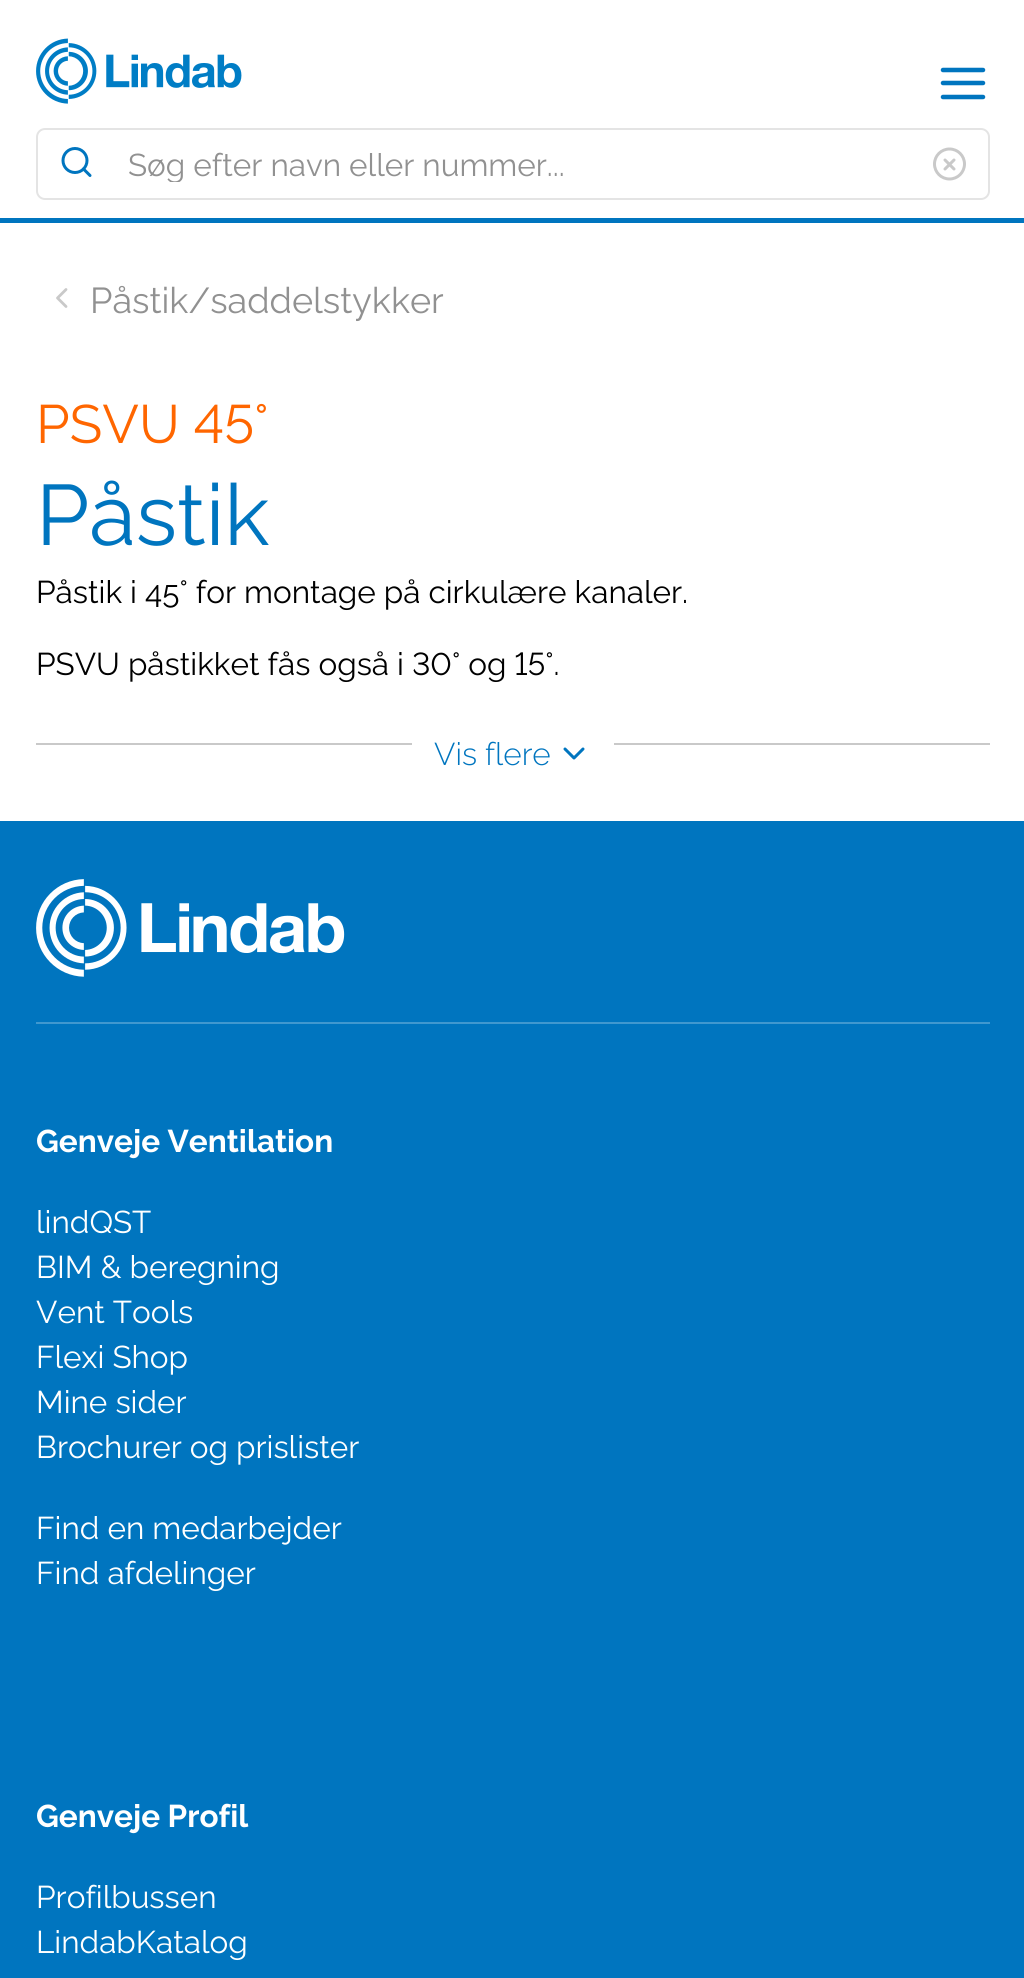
#include <cairo.h>
#include <math.h>
#include <stddef.h>


static void round_rect(cairo_t *cr, double x, double y, double w, double h, double r) {
    cairo_new_sub_path(cr);
    cairo_arc(cr, x + w - r, y + h - r, r, 0, M_PI / 2);
    cairo_arc(cr, x + r, y + h - r, r, M_PI / 2, M_PI);
    cairo_arc(cr, x + r, y + r, r, M_PI, 1.5 * M_PI);
    cairo_arc(cr, x + w - r, y + r, r, 1.5 * M_PI, 2 * M_PI);
    cairo_close_path(cr);
}

static void picture(cairo_t *cr, const char *path, double x, double y, double w, double h) {
    cairo_surface_t *image = cairo_image_surface_create_from_png(path);
    cairo_save(cr);
    cairo_set_source_surface(cr, image, x, y);
    cairo_rectangle(cr, x, y, w, h);
    cairo_fill(cr);
    cairo_restore(cr);
    cairo_surface_destroy(image);
}

int main(void) {
    cairo_surface_t *surface = cairo_image_surface_create(CAIRO_FORMAT_RGB24, 1024, 1978);
    cairo_t *cr = cairo_create(surface);
    cairo_font_options_t *options = cairo_font_options_create();
    cairo_font_options_set_hint_metrics(options, CAIRO_HINT_METRICS_OFF);
    cairo_font_options_set_hint_style(options, CAIRO_HINT_STYLE_NONE);
    cairo_set_font_options(cr, options);
    cairo_set_miter_limit(cr, 4);
    cairo_set_source_rgb(cr, 1, 1, 1);
    cairo_paint(cr);
    cairo_set_source_rgb(cr, 0, 0.459, 0.749);
    cairo_rectangle(cr, 0, 218, 1024, 5);
    cairo_fill(cr);
    picture(cr, "img1.png", 36, 38, 206, 66);
    cairo_new_path(cr);
    cairo_move_to(cr, 943, 83);
    cairo_line_to(cr, 983, 83);
    cairo_move_to(cr, 943, 70);
    cairo_line_to(cr, 983, 70);
    cairo_move_to(cr, 943, 97);
    cairo_line_to(cr, 983, 97);
    cairo_set_line_width(cr, 4.5);
    cairo_set_line_cap(cr, CAIRO_LINE_CAP_ROUND);
    cairo_set_line_join(cr, CAIRO_LINE_JOIN_ROUND);
    cairo_stroke(cr);
    round_rect(cr, 37, 129, 952, 70, 8);
    cairo_set_source_rgb(cr, 0.894, 0.894, 0.894);
    cairo_set_line_width(cr, 2);
    cairo_set_line_cap(cr, CAIRO_LINE_CAP_BUTT);
    cairo_set_line_join(cr, CAIRO_LINE_JOIN_MITER);
    cairo_stroke(cr);
    cairo_arc(cr, 75, 160.5, 12, 0, 2 * M_PI);
    cairo_set_source_rgb(cr, 0, 0.459, 0.749);
    cairo_set_line_width(cr, 3);
    cairo_stroke(cr);
    cairo_new_path(cr);
    cairo_move_to(cr, 90, 175.5);
    cairo_line_to(cr, 83.5, 169);
    cairo_set_line_cap(cr, CAIRO_LINE_CAP_ROUND);
    cairo_set_line_join(cr, CAIRO_LINE_JOIN_ROUND);
    cairo_stroke(cr);
    cairo_save(cr);
    cairo_rectangle(cr, 128, 146, 752, 36);
    cairo_clip(cr);
    cairo_select_font_face(cr, "Raleway Thin", CAIRO_FONT_SLANT_NORMAL, CAIRO_FONT_WEIGHT_NORMAL);
    cairo_set_font_size(cr, 31.5);
    cairo_set_source_rgb(cr, 0.569, 0.569, 0.569);
    cairo_move_to(cr, 128, 176);
    cairo_show_text(cr, "Søg efter navn eller nummer...");
    cairo_restore(cr);
    cairo_new_path(cr);
    cairo_arc(cr, 949.5, 164, 15, 0, 2 * M_PI);
    cairo_set_source_rgb(cr, 0.788, 0.788, 0.788);
    cairo_set_line_cap(cr, CAIRO_LINE_CAP_BUTT);
    cairo_set_line_join(cr, CAIRO_LINE_JOIN_MITER);
    cairo_stroke(cr);
    cairo_new_path(cr);
    cairo_move_to(cr, 954, 160);
    cairo_line_to(cr, 945, 169);
    cairo_move_to(cr, 945, 160);
    cairo_line_to(cr, 954, 169);
    cairo_set_line_cap(cr, CAIRO_LINE_CAP_ROUND);
    cairo_set_line_join(cr, CAIRO_LINE_JOIN_ROUND);
    cairo_stroke(cr);
    cairo_new_path(cr);
    cairo_move_to(cr, 66, 306.5);
    cairo_line_to(cr, 57.5, 298);
    cairo_line_to(cr, 66, 289.5);
    cairo_set_line_width(cr, 2.8);
    cairo_stroke(cr);
    cairo_select_font_face(cr, "Raleway Thin", CAIRO_FONT_SLANT_NORMAL, CAIRO_FONT_WEIGHT_NORMAL);
    cairo_set_font_size(cr, 36);
    cairo_set_source_rgb(cr, 0.569, 0.569, 0.569);
    cairo_move_to(cr, 90, 313);
    cairo_show_text(cr, "Påstik/saddelstykker");
    cairo_select_font_face(cr, "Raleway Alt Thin", CAIRO_FONT_SLANT_NORMAL, CAIRO_FONT_WEIGHT_NORMAL);
    cairo_set_font_size(cr, 54);
    cairo_set_source_rgb(cr, 1, 0.4, 0);
    cairo_move_to(cr, 36, 443);
    cairo_show_text(cr, "PSVU 45°");
    cairo_select_font_face(cr, "Raleway Thin", CAIRO_FONT_SLANT_NORMAL, CAIRO_FONT_WEIGHT_NORMAL);
    cairo_set_font_size(cr, 85.5);
    cairo_set_source_rgb(cr, 0, 0.459, 0.749);
    cairo_move_to(cr, 36, 545);
    cairo_show_text(cr, "Påstik");
    cairo_set_font_size(cr, 31.5);
    cairo_set_source_rgb(cr, 0, 0, 0);
    cairo_move_to(cr, 36, 603);
    cairo_show_text(cr, "Påstik i 45° for montage på cirkulære kanaler.");
    cairo_select_font_face(cr, "Raleway Alt Thin", CAIRO_FONT_SLANT_NORMAL, CAIRO_FONT_WEIGHT_NORMAL);
    cairo_move_to(cr, 36, 675);
    cairo_show_text(cr, "PSVU påstikket fås også i 30° og 15°.");
    cairo_set_source_rgb(cr, 0.788, 0.788, 0.788);
    cairo_rectangle(cr, 36, 743, 954, 2);
    cairo_fill(cr);
    cairo_set_source_rgb(cr, 1, 1, 1);
    cairo_rectangle(cr, 412, 743, 202, 2);
    cairo_fill(cr);
    cairo_select_font_face(cr, "Raleway Light", CAIRO_FONT_SLANT_NORMAL, CAIRO_FONT_WEIGHT_NORMAL);
    cairo_set_source_rgb(cr, 0, 0.459, 0.749);
    cairo_move_to(cr, 434, 765);
    cairo_show_text(cr, "Vis flere");
    cairo_new_path(cr);
    cairo_move_to(cr, 565, 749);
    cairo_line_to(cr, 574, 758);
    cairo_line_to(cr, 583, 749);
    cairo_set_line_width(cr, 3);
    cairo_stroke(cr);
    cairo_rectangle(cr, 0, 821, 1024, 1157);
    cairo_fill(cr);
    picture(cr, "img2.png", 36, 879, 309, 98);
    cairo_set_source_rgb(cr, 0.251, 0.596, 0.812);
    cairo_rectangle(cr, 36, 1022, 954, 2);
    cairo_fill(cr);
    cairo_select_font_face(cr, "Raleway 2 Thin", CAIRO_FONT_SLANT_NORMAL, CAIRO_FONT_WEIGHT_NORMAL);
    cairo_set_source_rgb(cr, 1, 1, 1);
    cairo_move_to(cr, 36, 1152);
    cairo_show_text(cr, "Genveje Ventilation");
    cairo_select_font_face(cr, "Raleway Thin", CAIRO_FONT_SLANT_NORMAL, CAIRO_FONT_WEIGHT_NORMAL);
    cairo_move_to(cr, 36, 1233);
    cairo_show_text(cr, "lindQST");
    cairo_move_to(cr, 36, 1278);
    cairo_show_text(cr, "BIM & beregning");
    cairo_move_to(cr, 36, 1323);
    cairo_show_text(cr, "Vent Tools");
    cairo_move_to(cr, 36, 1368);
    cairo_show_text(cr, "Flexi Shop");
    cairo_move_to(cr, 36, 1413);
    cairo_show_text(cr, "Mine sider");
    cairo_move_to(cr, 36, 1458);
    cairo_show_text(cr, "Brochurer og prislister");
    cairo_move_to(cr, 36, 1539);
    cairo_show_text(cr, "Find en medarbejder");
    cairo_move_to(cr, 36, 1584);
    cairo_show_text(cr, "Find afdelinger");
    cairo_select_font_face(cr, "Raleway 2 Thin", CAIRO_FONT_SLANT_NORMAL, CAIRO_FONT_WEIGHT_NORMAL);
    cairo_move_to(cr, 36, 1827);
    cairo_show_text(cr, "Genveje Profil");
    cairo_select_font_face(cr, "Raleway Thin", CAIRO_FONT_SLANT_NORMAL, CAIRO_FONT_WEIGHT_NORMAL);
    cairo_move_to(cr, 36, 1908);
    cairo_show_text(cr, "Profilbussen");
    cairo_move_to(cr, 36, 1953);
    cairo_show_text(cr, "LindabKatalog");
    cairo_surface_write_to_png(surface, "page.png");
    cairo_font_options_destroy(options);
    cairo_destroy(cr);
    cairo_surface_destroy(surface);
    return 0;
}
